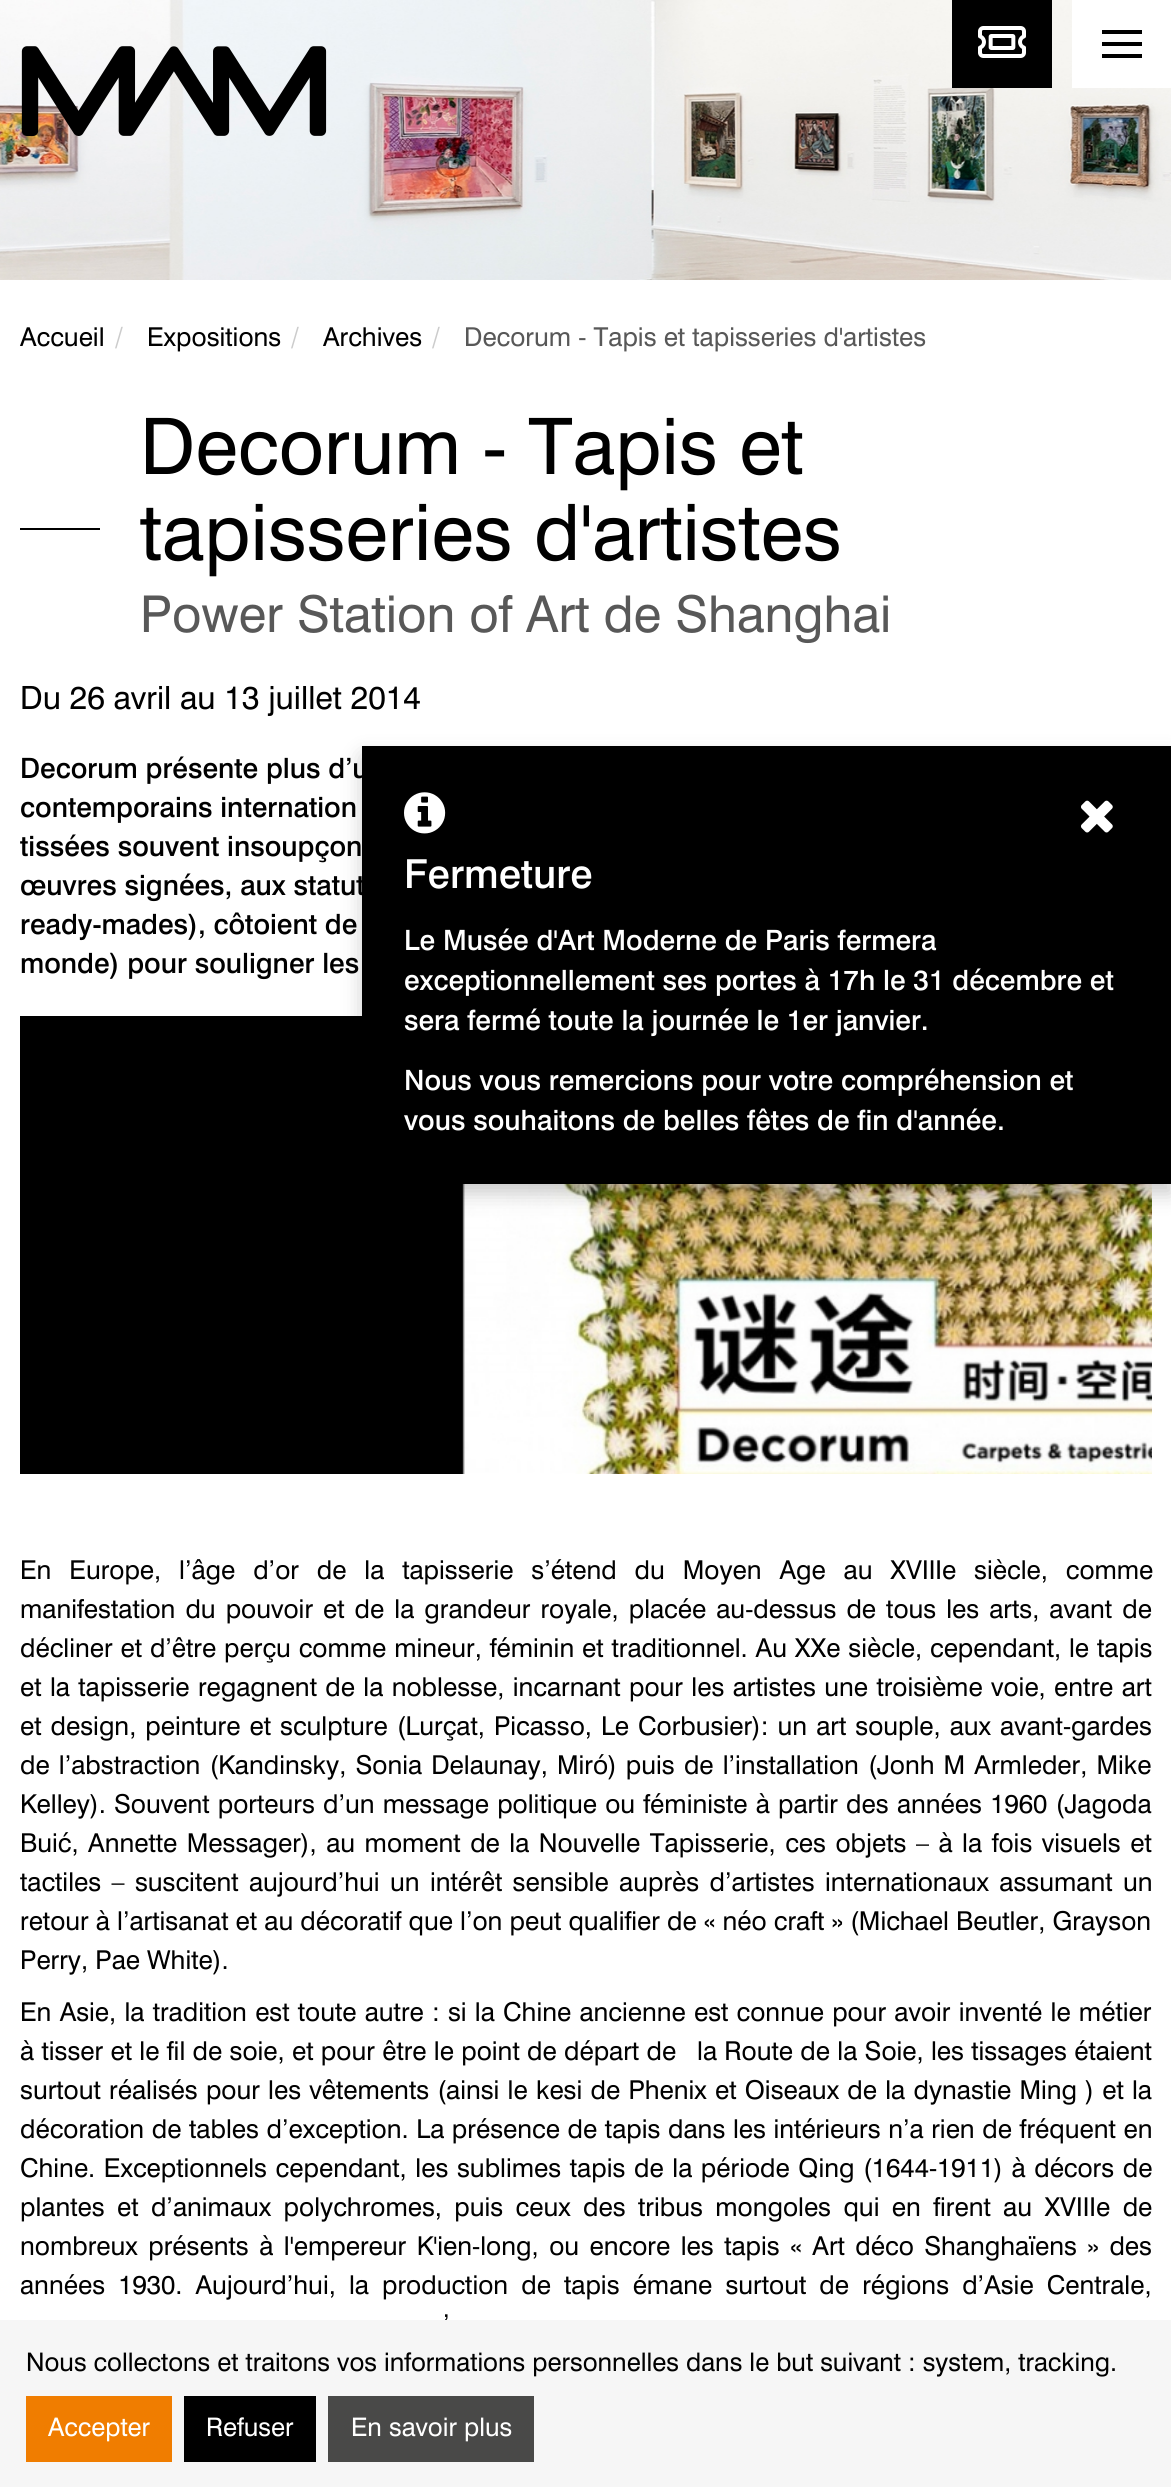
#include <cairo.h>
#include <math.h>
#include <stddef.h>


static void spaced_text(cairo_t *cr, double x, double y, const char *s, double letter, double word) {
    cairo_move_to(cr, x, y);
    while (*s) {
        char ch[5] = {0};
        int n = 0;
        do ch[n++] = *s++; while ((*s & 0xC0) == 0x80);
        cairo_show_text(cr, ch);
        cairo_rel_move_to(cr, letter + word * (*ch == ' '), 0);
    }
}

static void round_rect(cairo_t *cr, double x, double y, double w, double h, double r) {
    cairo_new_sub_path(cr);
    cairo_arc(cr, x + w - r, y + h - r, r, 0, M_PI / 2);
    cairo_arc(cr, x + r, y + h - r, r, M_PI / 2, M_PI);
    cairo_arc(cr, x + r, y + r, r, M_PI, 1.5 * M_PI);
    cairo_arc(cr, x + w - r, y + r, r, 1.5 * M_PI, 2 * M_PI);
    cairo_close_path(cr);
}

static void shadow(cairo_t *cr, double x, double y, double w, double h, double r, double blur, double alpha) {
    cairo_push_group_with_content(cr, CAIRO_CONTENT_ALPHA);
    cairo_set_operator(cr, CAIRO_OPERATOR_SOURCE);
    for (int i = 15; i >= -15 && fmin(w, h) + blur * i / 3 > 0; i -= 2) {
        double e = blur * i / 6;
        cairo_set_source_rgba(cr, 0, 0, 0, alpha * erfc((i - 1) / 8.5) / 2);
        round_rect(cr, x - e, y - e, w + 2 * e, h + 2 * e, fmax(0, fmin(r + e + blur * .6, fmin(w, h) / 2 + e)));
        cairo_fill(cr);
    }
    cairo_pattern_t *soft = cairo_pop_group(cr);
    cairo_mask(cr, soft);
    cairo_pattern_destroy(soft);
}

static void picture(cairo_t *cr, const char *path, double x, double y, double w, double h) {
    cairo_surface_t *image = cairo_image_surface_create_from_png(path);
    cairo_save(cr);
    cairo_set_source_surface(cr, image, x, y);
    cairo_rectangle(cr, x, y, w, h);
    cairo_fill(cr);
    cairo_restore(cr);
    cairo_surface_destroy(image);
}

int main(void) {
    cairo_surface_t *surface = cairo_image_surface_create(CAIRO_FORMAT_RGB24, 1171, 2487);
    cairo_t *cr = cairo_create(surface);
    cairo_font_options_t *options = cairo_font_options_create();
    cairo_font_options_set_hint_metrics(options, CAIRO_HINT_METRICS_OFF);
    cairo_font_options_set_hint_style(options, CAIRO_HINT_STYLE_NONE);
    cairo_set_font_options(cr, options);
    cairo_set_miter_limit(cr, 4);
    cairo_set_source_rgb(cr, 1, 1, 1);
    cairo_paint(cr);
    picture(cr, "img2.png", 0, 0, 1171, 280);
    cairo_set_source_rgb(cr, 0, 0, 0);
    cairo_rectangle(cr, 952, 0, 100, 88);
    cairo_fill(cr);
    picture(cr, "img1.png", 978, 26, 48, 32);
    cairo_set_source_rgb(cr, 1, 1, 1);
    cairo_rectangle(cr, 1072, 0, 99, 88);
    cairo_fill(cr);
    cairo_set_source_rgb(cr, 0, 0, 0);
    cairo_rectangle(cr, 1102, 30, 40, 4);
    cairo_fill(cr);
    cairo_rectangle(cr, 1102, 42, 40, 4);
    cairo_fill(cr);
    cairo_rectangle(cr, 1102, 54, 40, 4);
    cairo_fill(cr);
    picture(cr, "img3.png", 21, 46, 306, 90);
    cairo_select_font_face(cr, "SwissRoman", CAIRO_FONT_SLANT_NORMAL, CAIRO_FONT_WEIGHT_NORMAL);
    cairo_set_font_size(cr, 26);
    cairo_move_to(cr, 20, 346);
    cairo_show_text(cr, "Accueil");
    cairo_set_source_rgb(cr, 0.8, 0.8, 0.8);
    cairo_move_to(cr, 115, 346);
    cairo_show_text(cr, "/");
    cairo_set_source_rgb(cr, 0, 0, 0);
    cairo_move_to(cr, 147, 346);
    cairo_show_text(cr, "Expositions");
    cairo_set_source_rgb(cr, 0.8, 0.8, 0.8);
    cairo_move_to(cr, 291, 346);
    cairo_show_text(cr, "/");
    cairo_set_source_rgb(cr, 0, 0, 0);
    cairo_move_to(cr, 323, 346);
    cairo_show_text(cr, "Archives");
    cairo_set_source_rgb(cr, 0.8, 0.8, 0.8);
    cairo_move_to(cr, 432, 346);
    cairo_show_text(cr, "/");
    cairo_set_source_rgb(cr, 0.345, 0.345, 0.345);
    cairo_move_to(cr, 464, 346);
    cairo_show_text(cr, "Decorum - Tapis et tapisseries d'artistes");
    cairo_set_font_size(cr, 78);
    cairo_set_source_rgb(cr, 0, 0, 0);
    cairo_move_to(cr, 140, 474);
    cairo_show_text(cr, "Decorum - Tapis et");
    cairo_rectangle(cr, 20, 528, 80, 2);
    cairo_fill(cr);
    cairo_move_to(cr, 140, 560);
    cairo_show_text(cr, "tapisseries d'artistes");
    cairo_set_font_size(cr, 50.75);
    cairo_set_source_rgb(cr, 0.345, 0.345, 0.345);
    cairo_move_to(cr, 140, 632);
    cairo_show_text(cr, "Power Station of Art de Shanghai");
    cairo_set_font_size(cr, 32);
    cairo_set_source_rgb(cr, 0, 0, 0);
    cairo_move_to(cr, 20, 709);
    cairo_show_text(cr, "Du 26 avril au 13 juillet 2014");
    cairo_select_font_face(cr, "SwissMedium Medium", CAIRO_FONT_SLANT_NORMAL, CAIRO_FONT_WEIGHT_NORMAL);
    cairo_set_font_size(cr, 28);
    cairo_move_to(cr, 20, 778);
    cairo_show_text(cr, "Decorum présente plus d’u");
    cairo_move_to(cr, 20, 817);
    cairo_show_text(cr, "contemporains internation");
    cairo_move_to(cr, 20, 856);
    cairo_show_text(cr, "tissées souvent insoupçon");
    cairo_move_to(cr, 20, 895);
    cairo_show_text(cr, "œuvres signées, aux statut");
    cairo_move_to(cr, 20, 934);
    cairo_show_text(cr, "ready-mades), côtoient de");
    cairo_move_to(cr, 20, 973);
    cairo_show_text(cr, "monde) pour souligner les");
    picture(cr, "img4.png", 20, 1016, 1132, 458);
    cairo_select_font_face(cr, "SwissRoman", CAIRO_FONT_SLANT_NORMAL, CAIRO_FONT_WEIGHT_NORMAL);
    cairo_set_font_size(cr, 26);
    spaced_text(cr, 20, 1579, "En Europe, l’âge d’or de la tapisserie s’étend du Moyen Age au XVIIIe siècle, comme", 0, 10.75);
    spaced_text(cr, 20, 1618, "manifestation du pouvoir et de la grandeur royale, placée au-dessus de tous les arts, avant de", 0, 2.9);
    spaced_text(cr, 20, 1657, "décliner et d’être perçu comme mineur, féminin et traditionnel. Au XXe siècle, cependant, le tapis", 0, 0.75);
    spaced_text(cr, 20, 1696, "et la tapisserie regagnent de la noblesse, incarnant pour les artistes une troisième voie, entre art", 0, 1.25);
    spaced_text(cr, 20, 1735, "et design, peinture et sculpture (Lurçat, Picasso, Le Corbusier): un art souple, aux avant-gardes", 0, 1.9);
    spaced_text(cr, 20, 1774, "de l’abstraction (Kandinsky, Sonia Delaunay, Miró) puis de l’installation (Jonh M Armleder, Mike", 0, 2);
    spaced_text(cr, 20, 1813, "Kelley). Souvent porteurs d’un message politique ou féministe à partir des années 1960 (Jagoda", 0, 1.1);
    spaced_text(cr, 20, 1852, "Buić, Annette Messager), au moment de la Nouvelle Tapisserie, ces objets – à la fois visuels et", 0, 2.4);
    spaced_text(cr, 20, 1891, "tactiles – suscitent aujourd’hui un intérêt sensible auprès d’artistes internationaux assumant un", 0, 3.25);
    cairo_move_to(cr, 20, 1930);
    cairo_show_text(cr, "retour à l’artisanat et au décoratif que l’on peut qualifier de « néo craft » (Michael Beutler, Grayson");
    cairo_move_to(cr, 20, 1969);
    cairo_show_text(cr, "Perry, Pae White).");
    spaced_text(cr, 20, 2021, "En Asie, la tradition est toute autre : si la Chine ancienne est connue pour avoir inventé le métier", 0, 1.1);
    spaced_text(cr, 20, 2060, "à tisser et le fil de soie, et pour être le point de départ de", 0, 0.2);
    spaced_text(cr, 697, 2060, "la Route de la Soie, les tissages étaient", 0, 0.2);
    spaced_text(cr, 20, 2099, "surtout réalisés pour les vêtements (ainsi le kesi de Phenix et Oiseaux de la dynastie Ming ) et la", 0, 1.1);
    spaced_text(cr, 20, 2138, "décoration de tables d’exception. La présence de tapis dans les intérieurs n’a rien de fréquent en", 0, 0.5);
    spaced_text(cr, 20, 2177, "Chine. Exceptionnels cependant, les sublimes tapis de la période Qing (1644-1911) à décors de", 0, 1.5);
    spaced_text(cr, 20, 2216, "plantes et d’animaux polychromes, puis ceux des tribus mongoles qui en firent au XVIIIe de", 0, 5.25);
    spaced_text(cr, 20, 2255, "nombreux présents à l'empereur K'ien-long, ou encore les tapis « Art déco Shanghaïens » des", 0, 3.4);
    spaced_text(cr, 20, 2294, "années 1930. Aujourd’hui, la production de tapis émane surtout de régions d’Asie Centrale,", 0, 6);
    cairo_move_to(cr, 443, 2333);
    cairo_show_text(cr, "’");
    cairo_set_source_rgb(cr, 0, 0, 0);
    shadow(cr, 362, 756, 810, 438, 0, 10, 0.2);
    cairo_set_source_rgb(cr, 0, 0, 0);
    cairo_rectangle(cr, 362, 746, 809, 438);
    cairo_fill(cr);
    picture(cr, "img5.png", 1081, 800, 32, 33);
    picture(cr, "img6.png", 404, 792, 42, 42);
    cairo_select_font_face(cr, "SwissMedium Medium", CAIRO_FONT_SLANT_NORMAL, CAIRO_FONT_WEIGHT_NORMAL);
    cairo_set_font_size(cr, 40);
    cairo_set_source_rgb(cr, 1, 1, 1);
    cairo_move_to(cr, 404, 888);
    cairo_show_text(cr, "Fermeture");
    cairo_set_font_size(cr, 28);
    cairo_move_to(cr, 404, 950);
    cairo_show_text(cr, "Le Musée d'Art Moderne de Paris fermera");
    cairo_move_to(cr, 404, 990);
    cairo_show_text(cr, "exceptionnellement ses portes à 17h le 31 décembre et");
    cairo_move_to(cr, 404, 1030);
    cairo_show_text(cr, "sera fermé toute la journée le 1er janvier.");
    cairo_move_to(cr, 404, 1090);
    cairo_show_text(cr, "Nous vous remercions pour votre compréhension et");
    cairo_move_to(cr, 404, 1130);
    cairo_show_text(cr, "vous souhaitons de belles fêtes de fin d'année.");
    cairo_set_source_rgb(cr, 0.961, 0.961, 0.961);
    cairo_rectangle(cr, 0, 2320, 1171, 167);
    cairo_fill(cr);
    cairo_select_font_face(cr, "SwissRoman", CAIRO_FONT_SLANT_NORMAL, CAIRO_FONT_WEIGHT_NORMAL);
    cairo_set_font_size(cr, 25.6);
    cairo_set_source_rgb(cr, 0, 0, 0);
    cairo_move_to(cr, 26, 2371);
    cairo_show_text(cr, "Nous collectons et traitons vos informations personnelles dans le but suivant : system, tracking.");
    cairo_set_source_rgb(cr, 0.941, 0.49, 0);
    cairo_rectangle(cr, 26, 2396, 146, 66);
    cairo_fill(cr);
    cairo_set_source_rgb(cr, 1, 1, 1);
    cairo_move_to(cr, 48, 2436);
    cairo_show_text(cr, "Accepter");
    cairo_set_source_rgb(cr, 0, 0, 0);
    cairo_rectangle(cr, 184, 2396, 132, 66);
    cairo_fill(cr);
    cairo_set_source_rgb(cr, 1, 1, 1);
    cairo_move_to(cr, 206, 2436);
    cairo_show_text(cr, "Refuser");
    cairo_set_source_rgb(cr, 0.286, 0.286, 0.282);
    cairo_rectangle(cr, 328, 2396, 206, 66);
    cairo_fill(cr);
    cairo_set_source_rgb(cr, 1, 1, 1);
    cairo_move_to(cr, 351, 2436);
    cairo_show_text(cr, "En savoir plus");
    cairo_surface_write_to_png(surface, "page.png");
    cairo_font_options_destroy(options);
    cairo_destroy(cr);
    cairo_surface_destroy(surface);
    return 0;
}
